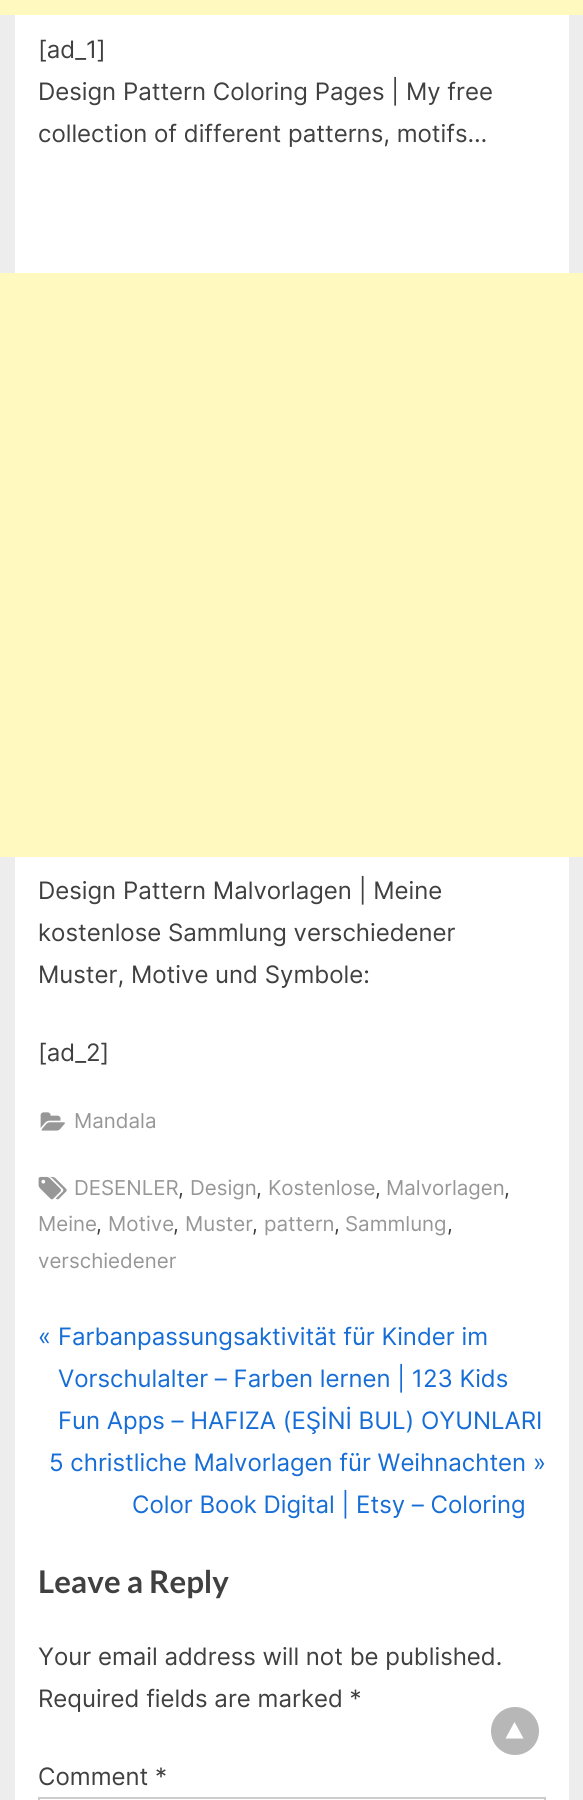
#include <cairo.h>
#include <math.h>
#include <stddef.h>


static void picture(cairo_t *cr, const char *path, double x, double y, double w, double h) {
    cairo_surface_t *image = cairo_image_surface_create_from_png(path);
    cairo_save(cr);
    cairo_set_source_surface(cr, image, x, y);
    cairo_rectangle(cr, x, y, w, h);
    cairo_fill(cr);
    cairo_restore(cr);
    cairo_surface_destroy(image);
}

int main(void) {
    cairo_surface_t *surface = cairo_image_surface_create(CAIRO_FORMAT_RGB24, 583, 1800);
    cairo_t *cr = cairo_create(surface);
    cairo_font_options_t *options = cairo_font_options_create();
    cairo_font_options_set_hint_metrics(options, CAIRO_HINT_METRICS_OFF);
    cairo_font_options_set_hint_style(options, CAIRO_HINT_STYLE_NONE);
    cairo_set_font_options(cr, options);
    cairo_set_miter_limit(cr, 4);
    cairo_set_source_rgb(cr, 0.929, 0.929, 0.929);
    cairo_paint(cr);
    cairo_set_source_rgb(cr, 1, 1, 1);
    cairo_rectangle(cr, 15, 15, 554, 1785);
    cairo_fill(cr);
    cairo_set_source_rgb(cr, 1, 0.976, 0.753);
    cairo_rectangle(cr, 0, 0, 583, 15);
    cairo_fill(cr);
    cairo_select_font_face(cr, "Inter", CAIRO_FONT_SLANT_NORMAL, CAIRO_FONT_WEIGHT_NORMAL);
    cairo_set_font_size(cr, 24);
    cairo_set_source_rgb(cr, 0.251, 0.251, 0.251);
    cairo_move_to(cr, 38, 58);
    cairo_show_text(cr, "[ad_1]");
    cairo_move_to(cr, 38, 100);
    cairo_show_text(cr, "Design Pattern Coloring Pages | My free");
    cairo_move_to(cr, 38, 142);
    cairo_show_text(cr, "collection of different patterns, motifs…");
    cairo_set_source_rgb(cr, 1, 0.976, 0.753);
    cairo_rectangle(cr, 0, 273, 583, 584);
    cairo_fill(cr);
    cairo_set_source_rgb(cr, 0.251, 0.251, 0.251);
    cairo_move_to(cr, 38, 899);
    cairo_show_text(cr, "Design Pattern Malvorlagen | Meine");
    cairo_move_to(cr, 38, 941);
    cairo_show_text(cr, "kostenlose Sammlung verschiedener");
    cairo_move_to(cr, 38, 983);
    cairo_show_text(cr, "Muster, Motive und Symbole:");
    cairo_move_to(cr, 38, 1061);
    cairo_show_text(cr, "[ad_2]");
    picture(cr, "img1.png", 40, 1112, 25, 19);
    cairo_set_font_size(cr, 20.5);
    cairo_set_source_rgb(cr, 0.592, 0.592, 0.592);
    cairo_move_to(cr, 74, 1128);
    cairo_show_text(cr, "Mandala");
    picture(cr, "img2.png", 38, 1176, 29, 24);
    cairo_move_to(cr, 74, 1195);
    cairo_show_text(cr, "DESENLER");
    cairo_set_source_rgb(cr, 0.251, 0.251, 0.251);
    cairo_move_to(cr, 178, 1195);
    cairo_show_text(cr, ",");
    cairo_set_source_rgb(cr, 0.592, 0.592, 0.592);
    cairo_move_to(cr, 190, 1195);
    cairo_show_text(cr, "Design");
    cairo_set_source_rgb(cr, 0.251, 0.251, 0.251);
    cairo_move_to(cr, 256, 1195);
    cairo_show_text(cr, ",");
    cairo_set_source_rgb(cr, 0.592, 0.592, 0.592);
    cairo_move_to(cr, 268, 1195);
    cairo_show_text(cr, "Kostenlose");
    cairo_set_source_rgb(cr, 0.251, 0.251, 0.251);
    cairo_move_to(cr, 375, 1195);
    cairo_show_text(cr, ",");
    cairo_set_source_rgb(cr, 0.592, 0.592, 0.592);
    cairo_move_to(cr, 386, 1195);
    cairo_show_text(cr, "Malvorlagen");
    cairo_set_source_rgb(cr, 0.251, 0.251, 0.251);
    cairo_move_to(cr, 504, 1195);
    cairo_show_text(cr, ",");
    cairo_set_source_rgb(cr, 0.592, 0.592, 0.592);
    cairo_move_to(cr, 38, 1231);
    cairo_show_text(cr, "Meine");
    cairo_set_source_rgb(cr, 0.251, 0.251, 0.251);
    cairo_move_to(cr, 96, 1231);
    cairo_show_text(cr, ",");
    cairo_set_source_rgb(cr, 0.592, 0.592, 0.592);
    cairo_move_to(cr, 108, 1231);
    cairo_show_text(cr, "Motive");
    cairo_set_source_rgb(cr, 0.251, 0.251, 0.251);
    cairo_move_to(cr, 173, 1231);
    cairo_show_text(cr, ",");
    cairo_set_source_rgb(cr, 0.592, 0.592, 0.592);
    cairo_move_to(cr, 185, 1231);
    cairo_show_text(cr, "Muster");
    cairo_set_source_rgb(cr, 0.251, 0.251, 0.251);
    cairo_move_to(cr, 252, 1231);
    cairo_show_text(cr, ",");
    cairo_set_source_rgb(cr, 0.592, 0.592, 0.592);
    cairo_move_to(cr, 264, 1231);
    cairo_show_text(cr, "pattern");
    cairo_set_source_rgb(cr, 0.251, 0.251, 0.251);
    cairo_move_to(cr, 334, 1231);
    cairo_show_text(cr, ",");
    cairo_set_source_rgb(cr, 0.592, 0.592, 0.592);
    cairo_move_to(cr, 345, 1231);
    cairo_show_text(cr, "Sammlung");
    cairo_set_source_rgb(cr, 0.251, 0.251, 0.251);
    cairo_move_to(cr, 447, 1231);
    cairo_show_text(cr, ",");
    cairo_set_source_rgb(cr, 0.592, 0.592, 0.592);
    cairo_move_to(cr, 38, 1268);
    cairo_show_text(cr, "verschiedener");
    cairo_set_font_size(cr, 24);
    cairo_set_source_rgb(cr, 0.086, 0.427, 0.839);
    cairo_move_to(cr, 38, 1345);
    cairo_show_text(cr, "«");
    cairo_move_to(cr, 58, 1345);
    cairo_show_text(cr, "Farbanpassungsaktivität für Kinder im");
    cairo_move_to(cr, 58, 1387);
    cairo_show_text(cr, "Vorschulalter – Farben lernen | 123 Kids");
    cairo_move_to(cr, 58, 1429);
    cairo_show_text(cr, "Fun Apps – HAFIZA (EŞİNİ BUL) OYUNLARI");
    cairo_move_to(cr, 49, 1471);
    cairo_show_text(cr, "5 christliche Malvorlagen für Weihnachten");
    cairo_move_to(cr, 132, 1513);
    cairo_show_text(cr, "Color Book Digital | Etsy – Coloring");
    cairo_move_to(cr, 533, 1471);
    cairo_show_text(cr, "»");
    cairo_select_font_face(cr, "Lato", CAIRO_FONT_SLANT_NORMAL, CAIRO_FONT_WEIGHT_BOLD);
    cairo_set_font_size(cr, 31.25);
    cairo_set_source_rgb(cr, 0.251, 0.251, 0.251);
    cairo_move_to(cr, 38, 1593);
    cairo_show_text(cr, "Leave a Reply");
    cairo_select_font_face(cr, "Inter", CAIRO_FONT_SLANT_NORMAL, CAIRO_FONT_WEIGHT_NORMAL);
    cairo_set_font_size(cr, 24);
    cairo_move_to(cr, 38, 1665);
    cairo_show_text(cr, "Your email address will not be published.");
    cairo_move_to(cr, 38, 1707);
    cairo_show_text(cr, "Required fields are marked *");
    cairo_move_to(cr, 38, 1785);
    cairo_show_text(cr, "Comment *");
    cairo_rectangle(cr, 39, 1798, 506, 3);
    cairo_set_source_rgb(cr, 0.8, 0.8, 0.8);
    cairo_stroke(cr);
    cairo_set_source_rgba(cr, 0.2, 0.2, 0.2, 0.35);
    cairo_arc(cr, 515, 1731, 24, 0, 2 * M_PI);
    cairo_fill(cr);
    cairo_set_source_rgb(cr, 1, 1, 1);
    cairo_new_path(cr);
    cairo_move_to(cr, 523.5, 1738.5);
    cairo_line_to(cr, 505.5, 1738.5);
    cairo_line_to(cr, 514.5, 1722);
    cairo_close_path(cr);
    cairo_fill(cr);
    cairo_surface_write_to_png(surface, "page.png");
    cairo_font_options_destroy(options);
    cairo_destroy(cr);
    cairo_surface_destroy(surface);
    return 0;
}
